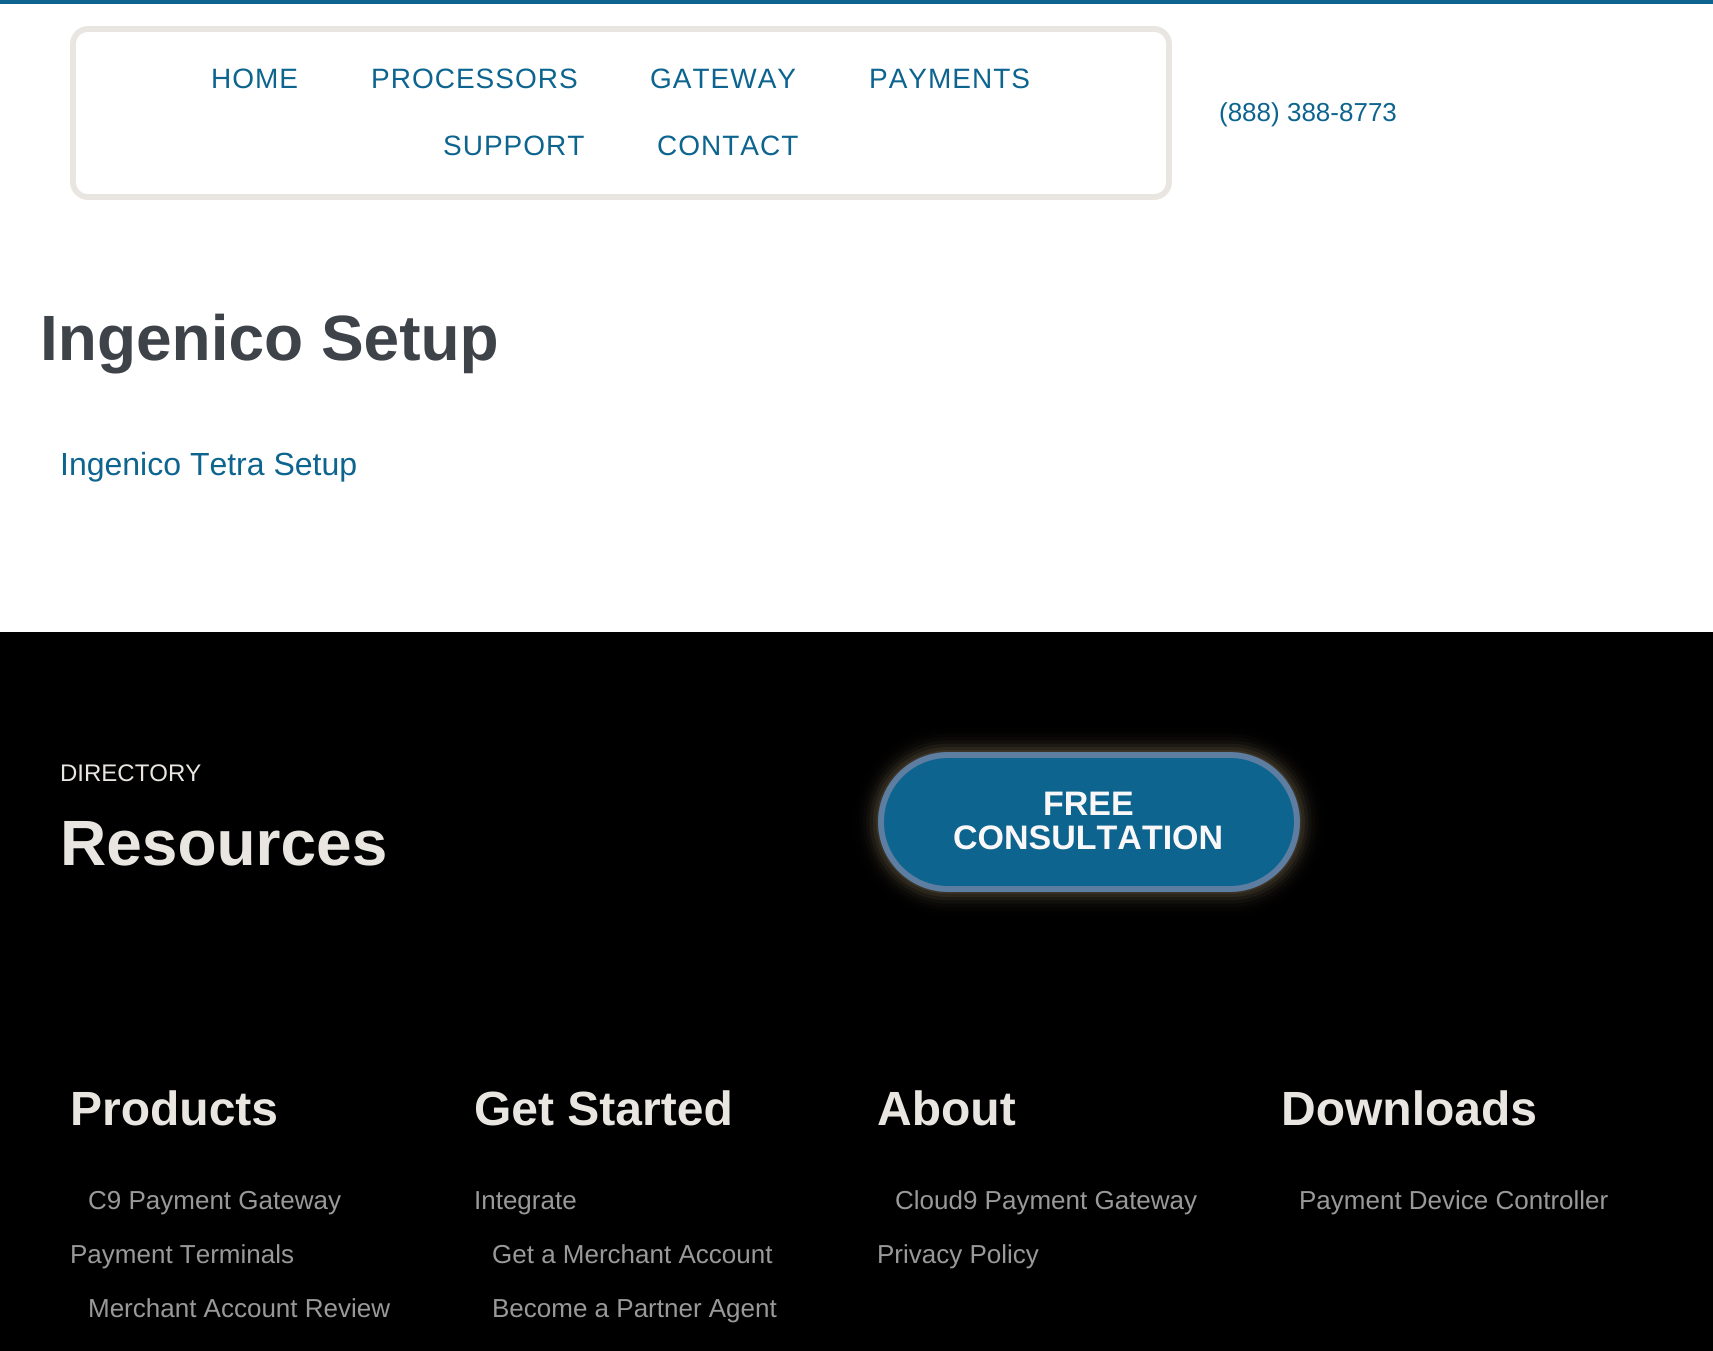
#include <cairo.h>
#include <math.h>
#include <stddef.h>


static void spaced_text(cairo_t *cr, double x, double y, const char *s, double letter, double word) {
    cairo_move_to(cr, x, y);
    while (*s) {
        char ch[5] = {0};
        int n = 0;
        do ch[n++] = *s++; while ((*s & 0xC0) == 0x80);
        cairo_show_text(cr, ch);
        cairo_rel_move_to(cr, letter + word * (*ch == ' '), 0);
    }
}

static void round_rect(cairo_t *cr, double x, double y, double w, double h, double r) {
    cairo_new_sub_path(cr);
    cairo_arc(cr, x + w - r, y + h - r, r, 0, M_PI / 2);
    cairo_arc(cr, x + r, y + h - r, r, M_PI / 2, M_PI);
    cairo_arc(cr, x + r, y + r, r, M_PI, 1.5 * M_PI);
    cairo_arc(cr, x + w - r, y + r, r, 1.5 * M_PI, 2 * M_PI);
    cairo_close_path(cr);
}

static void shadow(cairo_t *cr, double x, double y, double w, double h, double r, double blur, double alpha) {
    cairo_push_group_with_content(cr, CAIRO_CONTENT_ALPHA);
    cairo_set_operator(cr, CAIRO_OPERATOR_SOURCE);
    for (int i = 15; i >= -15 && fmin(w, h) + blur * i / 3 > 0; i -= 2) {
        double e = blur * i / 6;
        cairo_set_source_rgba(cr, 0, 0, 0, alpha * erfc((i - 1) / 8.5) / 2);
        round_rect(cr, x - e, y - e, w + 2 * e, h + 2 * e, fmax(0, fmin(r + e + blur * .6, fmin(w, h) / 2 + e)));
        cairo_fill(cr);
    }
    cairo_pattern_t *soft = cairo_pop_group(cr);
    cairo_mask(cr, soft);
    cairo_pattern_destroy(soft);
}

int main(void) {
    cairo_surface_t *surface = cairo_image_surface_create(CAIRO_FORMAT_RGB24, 1713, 1351);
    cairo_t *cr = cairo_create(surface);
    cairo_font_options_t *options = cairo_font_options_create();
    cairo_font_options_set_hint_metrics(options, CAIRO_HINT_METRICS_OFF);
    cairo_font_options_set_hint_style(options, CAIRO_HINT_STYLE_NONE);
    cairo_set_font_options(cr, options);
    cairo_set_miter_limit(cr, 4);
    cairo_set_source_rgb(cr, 1, 1, 1);
    cairo_paint(cr);
    cairo_set_source_rgb(cr, 0.051, 0.392, 0.561);
    cairo_rectangle(cr, 0, 0, 1713, 4);
    cairo_fill(cr);
    round_rect(cr, 73, 29, 1096, 168, 15);
    cairo_set_source_rgb(cr, 0.914, 0.902, 0.882);
    cairo_set_line_width(cr, 6);
    cairo_stroke(cr);
    cairo_select_font_face(cr, "Liberation Sans", CAIRO_FONT_SLANT_NORMAL, CAIRO_FONT_WEIGHT_NORMAL);
    cairo_set_font_size(cr, 28);
    cairo_set_source_rgb(cr, 0.051, 0.392, 0.561);
    spaced_text(cr, 211, 88, "HOME", 1, 0);
    spaced_text(cr, 371, 88, "PROCESSORS", 1, 0);
    spaced_text(cr, 650, 88, "GATEWAY", 1, 0);
    spaced_text(cr, 869, 88, "PAYMENTS", 1, 0);
    spaced_text(cr, 443, 155, "SUPPORT", 1, 0);
    spaced_text(cr, 657, 155, "CONTACT", 1, 0);
    cairo_set_font_size(cr, 26);
    cairo_move_to(cr, 1219, 121);
    cairo_show_text(cr, "(888) 388-8773");
    cairo_select_font_face(cr, "Liberation Sans", CAIRO_FONT_SLANT_NORMAL, CAIRO_FONT_WEIGHT_BOLD);
    cairo_set_font_size(cr, 64);
    cairo_set_source_rgb(cr, 0.243, 0.263, 0.286);
    cairo_move_to(cr, 40, 360);
    cairo_show_text(cr, "Ingenico Setup");
    cairo_select_font_face(cr, "Liberation Sans", CAIRO_FONT_SLANT_NORMAL, CAIRO_FONT_WEIGHT_NORMAL);
    cairo_set_font_size(cr, 32);
    cairo_set_source_rgb(cr, 0.051, 0.392, 0.561);
    cairo_move_to(cr, 60, 475);
    cairo_show_text(cr, "Ingenico Tetra Setup");
    cairo_set_source_rgb(cr, 0, 0, 0);
    cairo_rectangle(cr, 0, 632, 1713, 719);
    cairo_fill(cr);
    cairo_set_font_size(cr, 24);
    cairo_set_source_rgb(cr, 0.914, 0.902, 0.882);
    cairo_move_to(cr, 60, 781);
    cairo_show_text(cr, "DIRECTORY");
    cairo_select_font_face(cr, "Liberation Sans", CAIRO_FONT_SLANT_NORMAL, CAIRO_FONT_WEIGHT_BOLD);
    cairo_set_font_size(cr, 64);
    cairo_move_to(cr, 60, 865);
    cairo_show_text(cr, "Resources");
    cairo_set_source_rgb(cr, 0.459, 0.4, 0.302);
    shadow(cr, 878, 752, 422, 140, 70, 10, 1);
    cairo_set_source_rgb(cr, 0.051, 0.392, 0.561);
    round_rect(cr, 881, 755, 416, 134, 67);
    cairo_fill_preserve(cr);
    cairo_set_source_rgb(cr, 0.365, 0.49, 0.631);
    cairo_stroke(cr);
    cairo_set_font_size(cr, 34);
    cairo_set_source_rgb(cr, 0.973, 0.965, 0.965);
    cairo_move_to(cr, 1043, 815);
    cairo_show_text(cr, "FREE");
    cairo_move_to(cr, 953, 849);
    cairo_show_text(cr, "CONSULTATION");
    cairo_set_font_size(cr, 48);
    cairo_set_source_rgb(cr, 0.914, 0.902, 0.882);
    cairo_move_to(cr, 70, 1125);
    cairo_show_text(cr, "Products");
    cairo_select_font_face(cr, "Liberation Sans", CAIRO_FONT_SLANT_NORMAL, CAIRO_FONT_WEIGHT_NORMAL);
    cairo_set_font_size(cr, 26);
    cairo_set_source_rgb(cr, 0.6, 0.6, 0.6);
    cairo_move_to(cr, 88, 1209);
    cairo_show_text(cr, "C9 Payment Gateway");
    cairo_move_to(cr, 70, 1263);
    cairo_show_text(cr, "Payment Terminals");
    cairo_move_to(cr, 88, 1317);
    cairo_show_text(cr, "Merchant Account Review");
    cairo_select_font_face(cr, "Liberation Sans", CAIRO_FONT_SLANT_NORMAL, CAIRO_FONT_WEIGHT_BOLD);
    cairo_set_font_size(cr, 48);
    cairo_set_source_rgb(cr, 0.914, 0.902, 0.882);
    cairo_move_to(cr, 474, 1125);
    cairo_show_text(cr, "Get Started");
    cairo_select_font_face(cr, "Liberation Sans", CAIRO_FONT_SLANT_NORMAL, CAIRO_FONT_WEIGHT_NORMAL);
    cairo_set_font_size(cr, 26);
    cairo_set_source_rgb(cr, 0.6, 0.6, 0.6);
    cairo_move_to(cr, 474, 1209);
    cairo_show_text(cr, "Integrate");
    cairo_move_to(cr, 492, 1263);
    cairo_show_text(cr, "Get a Merchant Account");
    cairo_move_to(cr, 492, 1317);
    cairo_show_text(cr, "Become a Partner Agent");
    cairo_select_font_face(cr, "Liberation Sans", CAIRO_FONT_SLANT_NORMAL, CAIRO_FONT_WEIGHT_BOLD);
    cairo_set_font_size(cr, 48);
    cairo_set_source_rgb(cr, 0.914, 0.902, 0.882);
    cairo_move_to(cr, 877, 1125);
    cairo_show_text(cr, "About");
    cairo_select_font_face(cr, "Liberation Sans", CAIRO_FONT_SLANT_NORMAL, CAIRO_FONT_WEIGHT_NORMAL);
    cairo_set_font_size(cr, 26);
    cairo_set_source_rgb(cr, 0.6, 0.6, 0.6);
    cairo_move_to(cr, 895, 1209);
    cairo_show_text(cr, "Cloud9 Payment Gateway");
    cairo_move_to(cr, 877, 1263);
    cairo_show_text(cr, "Privacy Policy");
    cairo_select_font_face(cr, "Liberation Sans", CAIRO_FONT_SLANT_NORMAL, CAIRO_FONT_WEIGHT_BOLD);
    cairo_set_font_size(cr, 48);
    cairo_set_source_rgb(cr, 0.914, 0.902, 0.882);
    cairo_move_to(cr, 1281, 1125);
    cairo_show_text(cr, "Downloads");
    cairo_select_font_face(cr, "Liberation Sans", CAIRO_FONT_SLANT_NORMAL, CAIRO_FONT_WEIGHT_NORMAL);
    cairo_set_font_size(cr, 26);
    cairo_set_source_rgb(cr, 0.6, 0.6, 0.6);
    cairo_move_to(cr, 1299, 1209);
    cairo_show_text(cr, "Payment Device Controller");
    cairo_surface_write_to_png(surface, "page.png");
    cairo_font_options_destroy(options);
    cairo_destroy(cr);
    cairo_surface_destroy(surface);
    return 0;
}
